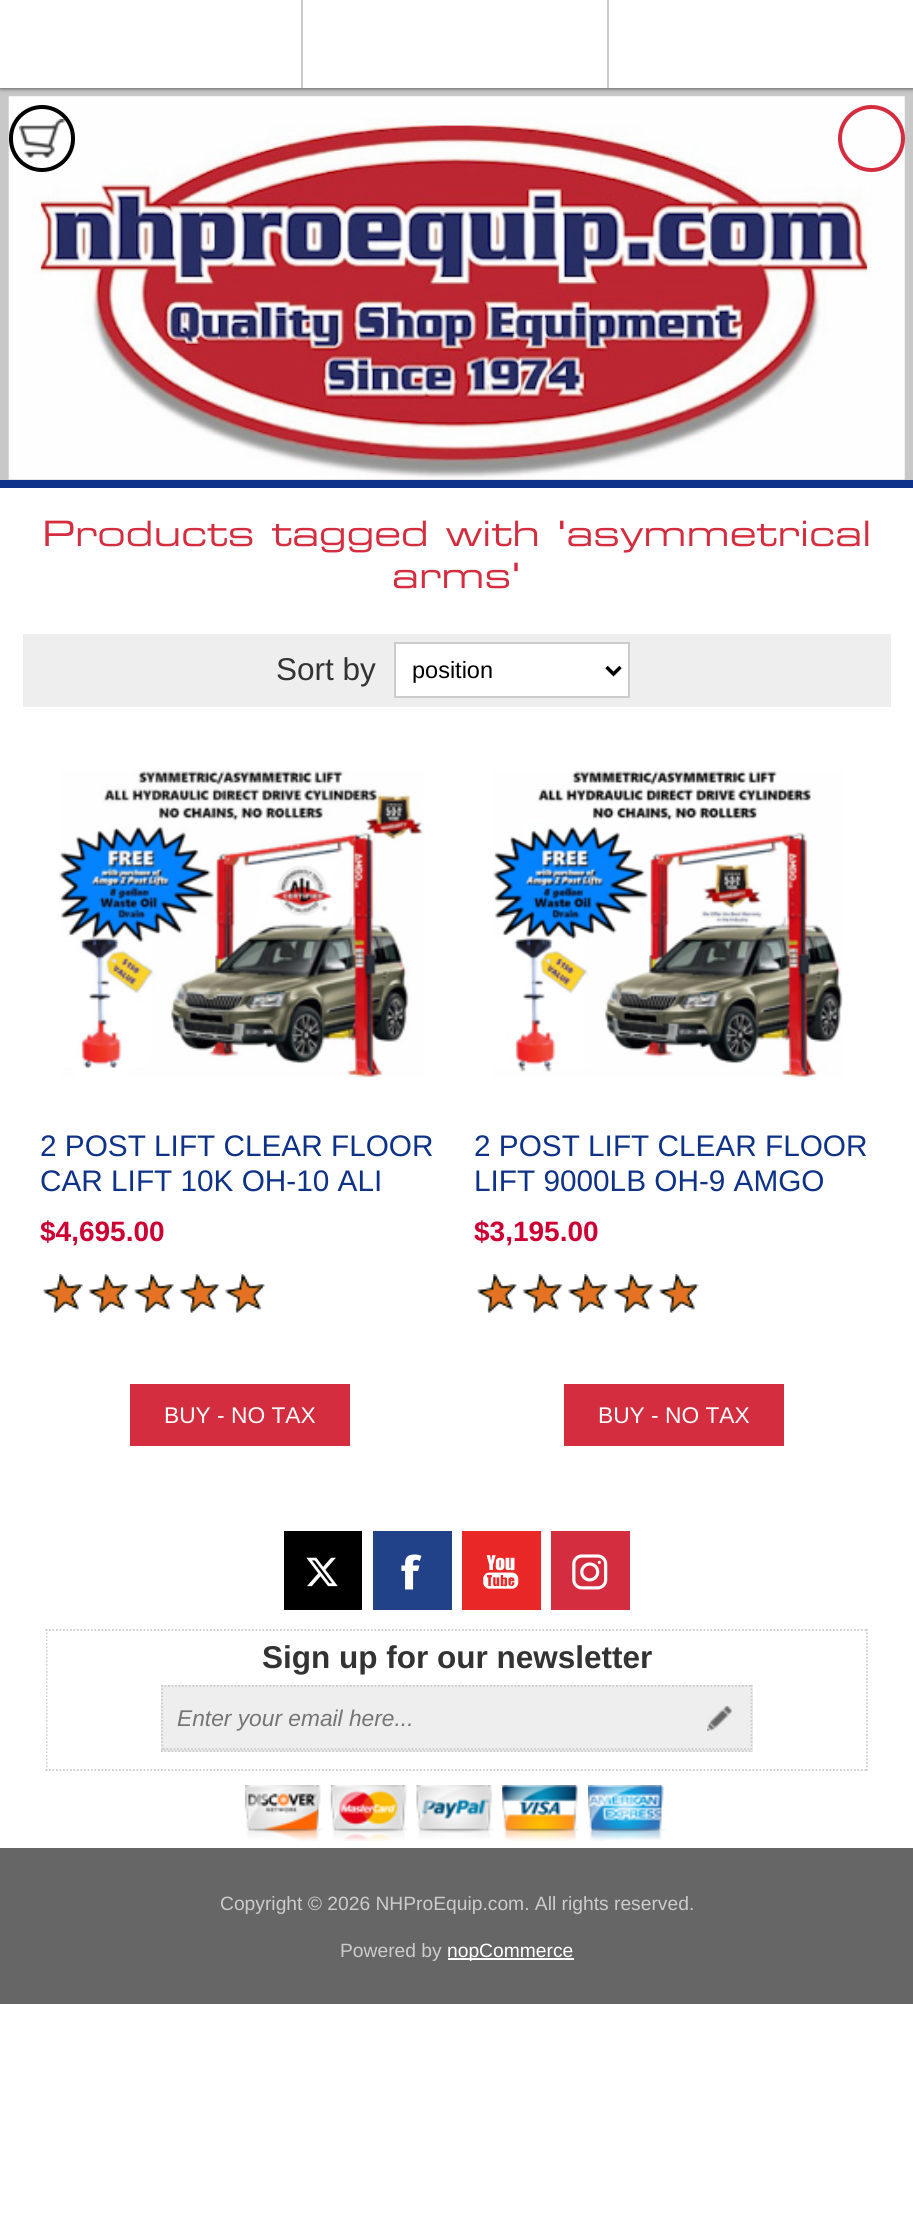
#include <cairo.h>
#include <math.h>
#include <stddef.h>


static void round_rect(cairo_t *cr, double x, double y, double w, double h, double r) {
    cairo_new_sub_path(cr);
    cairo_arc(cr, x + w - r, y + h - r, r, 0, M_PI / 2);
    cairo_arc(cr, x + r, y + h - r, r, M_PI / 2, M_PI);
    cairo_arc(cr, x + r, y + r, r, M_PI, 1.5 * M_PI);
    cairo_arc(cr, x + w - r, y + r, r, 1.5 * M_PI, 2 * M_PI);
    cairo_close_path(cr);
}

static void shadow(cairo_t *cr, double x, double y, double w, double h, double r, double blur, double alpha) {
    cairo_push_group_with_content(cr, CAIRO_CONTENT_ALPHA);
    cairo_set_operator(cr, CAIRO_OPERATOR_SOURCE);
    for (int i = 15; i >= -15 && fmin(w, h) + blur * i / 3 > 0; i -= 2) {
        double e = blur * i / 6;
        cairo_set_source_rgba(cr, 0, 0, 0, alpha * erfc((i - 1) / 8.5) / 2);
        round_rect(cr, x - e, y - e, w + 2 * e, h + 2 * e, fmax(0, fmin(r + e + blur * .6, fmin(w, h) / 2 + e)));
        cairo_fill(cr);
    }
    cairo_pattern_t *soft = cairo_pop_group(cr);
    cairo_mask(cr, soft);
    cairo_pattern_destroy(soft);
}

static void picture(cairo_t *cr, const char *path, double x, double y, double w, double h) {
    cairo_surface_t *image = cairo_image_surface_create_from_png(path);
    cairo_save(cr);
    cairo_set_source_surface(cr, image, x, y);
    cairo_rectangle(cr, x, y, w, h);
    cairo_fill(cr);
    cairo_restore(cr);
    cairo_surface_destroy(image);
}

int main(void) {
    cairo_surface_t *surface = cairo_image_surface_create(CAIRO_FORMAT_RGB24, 913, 2227);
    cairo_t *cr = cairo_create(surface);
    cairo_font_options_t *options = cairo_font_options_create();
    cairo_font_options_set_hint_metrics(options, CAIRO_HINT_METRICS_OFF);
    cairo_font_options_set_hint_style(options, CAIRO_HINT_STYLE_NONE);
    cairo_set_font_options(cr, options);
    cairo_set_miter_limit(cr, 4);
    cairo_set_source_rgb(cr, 1, 1, 1);
    cairo_paint(cr);
    cairo_set_source_rgb(cr, 0.784, 0.784, 0.784);
    cairo_rectangle(cr, 0, 88, 913, 392);
    cairo_fill(cr);
    picture(cr, "img1.png", 8, 96, 897, 384);
    cairo_set_source_rgb(cr, 0, 0, 0);
    shadow(cr, 0, 0, 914, 88, 0, 2.5, 0.75);
    cairo_set_source_rgb(cr, 1, 1, 1);
    cairo_rectangle(cr, 0, 0, 913, 88);
    cairo_fill(cr);
    cairo_set_source_rgb(cr, 0.8, 0.8, 0.8);
    cairo_rectangle(cr, 301, 0, 2, 88);
    cairo_fill(cr);
    cairo_rectangle(cr, 607, 0, 2, 88);
    cairo_fill(cr);
    cairo_set_source_rgb(cr, 0.055, 0.196, 0.533);
    cairo_rectangle(cr, 0, 480, 913, 8);
    cairo_fill(cr);
    picture(cr, "img2.png", 19, 119, 46, 39);
    round_rect(cr, 11, 107, 62, 63, 31);
    cairo_set_source_rgb(cr, 0, 0, 0);
    cairo_set_line_width(cr, 4);
    cairo_stroke(cr);
    cairo_arc(cr, 871.5, 138.5, 31.5, 0, 2 * M_PI);
    cairo_set_source_rgb(cr, 0.831, 0.176, 0.247);
    cairo_stroke(cr);
    cairo_select_font_face(cr, "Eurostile", CAIRO_FONT_SLANT_NORMAL, CAIRO_FONT_WEIGHT_NORMAL);
    cairo_set_font_size(cr, 35);
    cairo_move_to(cr, 42, 546);
    cairo_show_text(cr, "Products tagged with 'asymmetrical");
    cairo_move_to(cr, 392, 588);
    cairo_show_text(cr, "arms'");
    cairo_set_source_rgb(cr, 0.933, 0.933, 0.933);
    cairo_rectangle(cr, 23, 634, 868, 73);
    cairo_fill(cr);
    cairo_select_font_face(cr, "Liberation Sans", CAIRO_FONT_SLANT_NORMAL, CAIRO_FONT_WEIGHT_NORMAL);
    cairo_set_font_size(cr, 31.5);
    cairo_set_source_rgb(cr, 0.2, 0.2, 0.2);
    cairo_move_to(cr, 276, 680);
    cairo_show_text(cr, "Sort by");
    cairo_set_source_rgb(cr, 1, 1, 1);
    cairo_rectangle(cr, 395, 643, 234, 54);
    cairo_fill_preserve(cr);
    cairo_set_source_rgb(cr, 0.8, 0.8, 0.8);
    cairo_set_line_width(cr, 2);
    cairo_stroke(cr);
    cairo_new_path(cr);
    cairo_move_to(cr, 606.5, 667);
    cairo_line_to(cr, 613.5, 674);
    cairo_line_to(cr, 620.5, 667);
    cairo_set_source_rgb(cr, 0, 0, 0);
    cairo_set_line_width(cr, 3.5);
    cairo_stroke(cr);
    cairo_set_font_size(cr, 23.5);
    cairo_move_to(cr, 412, 678);
    cairo_show_text(cr, "position");
    picture(cr, "img3.png", 59, 770, 365, 308);
    cairo_set_font_size(cr, 29.75);
    cairo_set_source_rgb(cr, 0.055, 0.196, 0.533);
    cairo_move_to(cr, 40, 1156);
    cairo_show_text(cr, "2 POST LIFT CLEAR FLOOR");
    cairo_move_to(cr, 40, 1191);
    cairo_show_text(cr, "CAR LIFT 10K OH-10 ALI");
    cairo_select_font_face(cr, "Liberation Sans", CAIRO_FONT_SLANT_NORMAL, CAIRO_FONT_WEIGHT_BOLD);
    cairo_set_font_size(cr, 28);
    cairo_set_source_rgb(cr, 0.8, 0, 0.2);
    cairo_move_to(cr, 40, 1241);
    cairo_show_text(cr, "$4,695.00");
    picture(cr, "img4.png", 43, 1274, 222, 39);
    picture(cr, "img5.png", 43, 1274, 222, 39);
    cairo_set_source_rgb(cr, 0.831, 0.176, 0.247);
    cairo_rectangle(cr, 130, 1384, 220, 62);
    cairo_fill(cr);
    cairo_select_font_face(cr, "Liberation Sans", CAIRO_FONT_SLANT_NORMAL, CAIRO_FONT_WEIGHT_NORMAL);
    cairo_set_font_size(cr, 22.75);
    cairo_set_source_rgb(cr, 1, 1, 1);
    cairo_move_to(cr, 164, 1423);
    cairo_show_text(cr, "BUY - NO TAX");
    picture(cr, "img6.png", 493, 771, 350, 307);
    cairo_set_font_size(cr, 29.75);
    cairo_set_source_rgb(cr, 0.055, 0.196, 0.533);
    cairo_move_to(cr, 474, 1156);
    cairo_show_text(cr, "2 POST LIFT CLEAR FLOOR");
    cairo_move_to(cr, 474, 1191);
    cairo_show_text(cr, "LIFT 9000LB OH-9 AMGO");
    cairo_select_font_face(cr, "Liberation Sans", CAIRO_FONT_SLANT_NORMAL, CAIRO_FONT_WEIGHT_BOLD);
    cairo_set_font_size(cr, 28);
    cairo_set_source_rgb(cr, 0.8, 0, 0.2);
    cairo_move_to(cr, 474, 1241);
    cairo_show_text(cr, "$3,195.00");
    picture(cr, "img7.png", 477, 1274, 222, 39);
    picture(cr, "img8.png", 477, 1274, 220, 39);
    cairo_set_source_rgb(cr, 0.831, 0.176, 0.247);
    cairo_rectangle(cr, 564, 1384, 220, 62);
    cairo_fill(cr);
    cairo_select_font_face(cr, "Liberation Sans", CAIRO_FONT_SLANT_NORMAL, CAIRO_FONT_WEIGHT_NORMAL);
    cairo_set_font_size(cr, 22.75);
    cairo_set_source_rgb(cr, 1, 1, 1);
    cairo_move_to(cr, 598, 1423);
    cairo_show_text(cr, "BUY - NO TAX");
    cairo_set_source_rgb(cr, 0, 0, 0);
    cairo_rectangle(cr, 284, 1531, 78, 79);
    cairo_fill(cr);
    picture(cr, "img9.png", 306, 1557, 32, 30);
    cairo_set_source_rgb(cr, 0.129, 0.259, 0.533);
    cairo_rectangle(cr, 373, 1531, 79, 79);
    cairo_fill(cr);
    picture(cr, "img10.png", 401, 1554, 21, 36);
    cairo_set_source_rgb(cr, 0.914, 0.153, 0.149);
    cairo_rectangle(cr, 462, 1531, 79, 79);
    cairo_fill(cr);
    picture(cr, "img11.png", 483, 1555, 36, 34);
    cairo_set_source_rgb(cr, 0.831, 0.176, 0.247);
    cairo_rectangle(cr, 551, 1531, 79, 79);
    cairo_fill(cr);
    picture(cr, "img12.png", 572, 1554, 36, 36);
    cairo_new_path(cr);
    cairo_move_to(cr, 45.5, 1630);
    cairo_line_to(cr, 868, 1630);
    cairo_set_source_rgb(cr, 0.8, 0.8, 0.8);
    cairo_set_line_width(cr, 1.8);
    cairo_set_dash(cr, (double[]){1.75, 1.75}, 2, 0);
    cairo_stroke(cr);
    cairo_new_path(cr);
    cairo_move_to(cr, 867, 1629);
    cairo_line_to(cr, 867, 1771);
    cairo_stroke(cr);
    cairo_new_path(cr);
    cairo_move_to(cr, 45.5, 1770);
    cairo_line_to(cr, 868, 1770);
    cairo_stroke(cr);
    cairo_save(cr);
    cairo_rectangle(cr, 46, 1514, 822, 331);
    cairo_clip(cr);
    cairo_new_path(cr);
    cairo_move_to(cr, 46.5, 1629);
    cairo_line_to(cr, 46.5, 1771);
    cairo_stroke(cr);
    cairo_restore(cr);
    cairo_select_font_face(cr, "Liberation Sans", CAIRO_FONT_SLANT_NORMAL, CAIRO_FONT_WEIGHT_BOLD);
    cairo_set_font_size(cr, 31.5);
    cairo_set_source_rgb(cr, 0.2, 0.2, 0.2);
    cairo_move_to(cr, 262, 1668);
    cairo_show_text(cr, "Sign up for our newsletter");
    cairo_set_source_rgb(cr, 0.933, 0.933, 0.933);
    cairo_rectangle(cr, 161, 1685, 592, 67);
    cairo_fill(cr);
    cairo_new_path(cr);
    cairo_move_to(cr, 161, 1686);
    cairo_line_to(cr, 752.5, 1686);
    cairo_set_source_rgb(cr, 0.8, 0.8, 0.8);
    cairo_stroke(cr);
    cairo_new_path(cr);
    cairo_move_to(cr, 751.5, 1685);
    cairo_line_to(cr, 751.5, 1752);
    cairo_stroke(cr);
    cairo_new_path(cr);
    cairo_move_to(cr, 161, 1751);
    cairo_line_to(cr, 752.5, 1751);
    cairo_stroke(cr);
    cairo_new_path(cr);
    cairo_move_to(cr, 162, 1685);
    cairo_line_to(cr, 162, 1752);
    cairo_stroke(cr);
    cairo_new_path(cr);
    cairo_move_to(cr, 163, 1749);
    cairo_line_to(cr, 688, 1749);
    cairo_stroke(cr);
    cairo_select_font_face(cr, "Liberation Sans", CAIRO_FONT_SLANT_ITALIC, CAIRO_FONT_WEIGHT_NORMAL);
    cairo_set_font_size(cr, 22.75);
    cairo_set_source_rgb(cr, 0.459, 0.459, 0.459);
    cairo_move_to(cr, 177, 1726);
    cairo_show_text(cr, "Enter your email here...");
    picture(cr, "img13.png", 707, 1706, 25, 25);
    cairo_new_path(cr);
    cairo_move_to(cr, 688, 1749);
    cairo_line_to(cr, 751, 1749);
    cairo_set_source_rgb(cr, 0.8, 0.8, 0.8);
    cairo_stroke(cr);
    picture(cr, "img14.png", 245, 1785, 77, 56);
    picture(cr, "img15.png", 330, 1785, 78, 56);
    picture(cr, "img16.png", 416, 1785, 78, 54);
    picture(cr, "img17.png", 502, 1785, 77, 56);
    picture(cr, "img18.png", 588, 1785, 78, 56);
    cairo_set_source_rgb(cr, 0.4, 0.4, 0.4);
    cairo_rectangle(cr, 0, 1848, 913, 156);
    cairo_fill(cr);
    cairo_select_font_face(cr, "Liberation Sans", CAIRO_FONT_SLANT_NORMAL, CAIRO_FONT_WEIGHT_NORMAL);
    cairo_set_font_size(cr, 19.25);
    cairo_set_source_rgb(cr, 0.8, 0.8, 0.8);
    cairo_move_to(cr, 220, 1910);
    cairo_show_text(cr, "Copyright © 2026 NHProEquip.com. All rights reserved.");
    cairo_move_to(cr, 340, 1957);
    cairo_show_text(cr, "Powered by");
    cairo_set_source_rgb(cr, 1, 1, 1);
    cairo_rectangle(cr, 448, 1958, 126, 2);
    cairo_fill(cr);
    cairo_move_to(cr, 447, 1957);
    cairo_show_text(cr, "nopCommerce");
    cairo_surface_write_to_png(surface, "page.png");
    cairo_font_options_destroy(options);
    cairo_destroy(cr);
    cairo_surface_destroy(surface);
    return 0;
}
